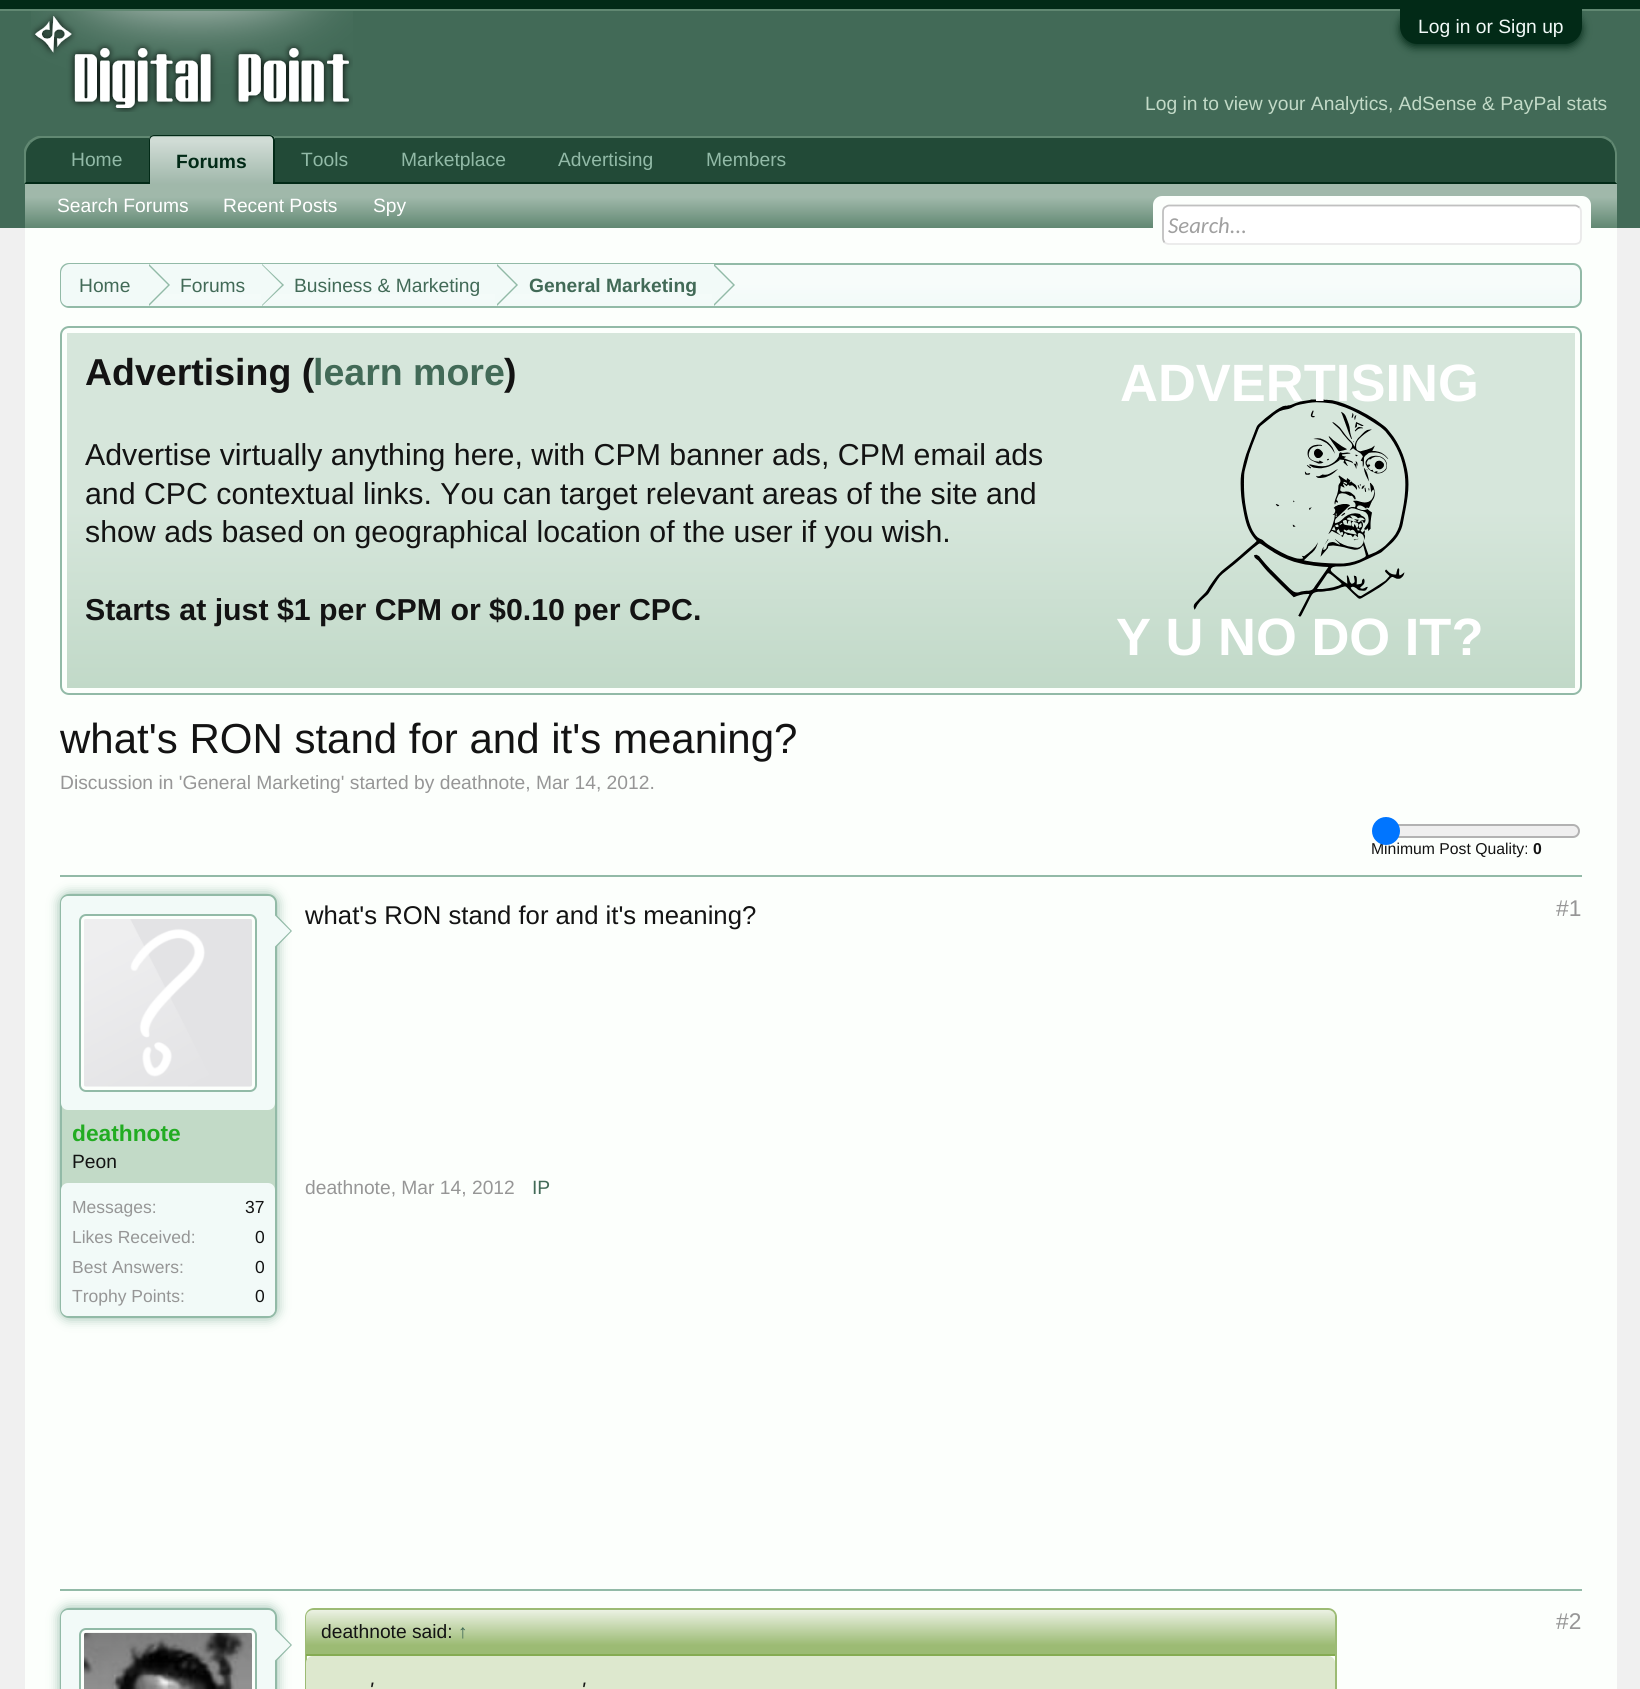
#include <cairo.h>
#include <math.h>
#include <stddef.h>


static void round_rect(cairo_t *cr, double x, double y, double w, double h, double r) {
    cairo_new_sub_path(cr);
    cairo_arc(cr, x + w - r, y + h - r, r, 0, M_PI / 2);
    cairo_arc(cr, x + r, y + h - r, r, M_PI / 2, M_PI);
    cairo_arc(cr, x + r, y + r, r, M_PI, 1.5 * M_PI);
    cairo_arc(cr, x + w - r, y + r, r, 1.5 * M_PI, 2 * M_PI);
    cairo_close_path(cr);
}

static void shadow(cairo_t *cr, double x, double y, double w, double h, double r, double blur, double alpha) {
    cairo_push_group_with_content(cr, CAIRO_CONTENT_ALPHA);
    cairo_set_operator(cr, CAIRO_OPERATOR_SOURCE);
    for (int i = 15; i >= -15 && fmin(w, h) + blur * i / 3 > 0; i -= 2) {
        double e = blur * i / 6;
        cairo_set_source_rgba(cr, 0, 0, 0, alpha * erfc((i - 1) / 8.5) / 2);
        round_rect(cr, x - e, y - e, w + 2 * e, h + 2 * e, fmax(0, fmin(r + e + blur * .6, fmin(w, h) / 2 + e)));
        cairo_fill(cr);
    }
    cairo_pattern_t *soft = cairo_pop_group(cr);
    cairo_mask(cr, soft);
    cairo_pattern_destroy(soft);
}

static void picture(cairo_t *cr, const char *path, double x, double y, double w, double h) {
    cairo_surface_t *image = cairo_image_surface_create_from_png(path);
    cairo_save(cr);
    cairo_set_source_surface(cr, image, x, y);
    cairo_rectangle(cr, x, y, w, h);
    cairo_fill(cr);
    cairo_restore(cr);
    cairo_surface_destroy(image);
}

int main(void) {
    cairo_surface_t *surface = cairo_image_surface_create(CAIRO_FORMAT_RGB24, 1640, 1689);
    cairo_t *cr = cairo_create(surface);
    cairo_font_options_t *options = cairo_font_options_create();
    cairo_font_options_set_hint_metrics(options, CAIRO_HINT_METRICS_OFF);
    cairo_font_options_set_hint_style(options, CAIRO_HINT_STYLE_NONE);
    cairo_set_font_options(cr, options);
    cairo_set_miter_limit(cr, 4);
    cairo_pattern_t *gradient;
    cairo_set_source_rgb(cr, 0.941, 0.941, 0.941);
    cairo_paint(cr);
    cairo_set_source_rgb(cr, 0.008, 0.165, 0.09);
    cairo_rectangle(cr, 0, 0, 1640, 9);
    cairo_fill(cr);
    cairo_set_source_rgb(cr, 0.38, 0.533, 0.447);
    cairo_rectangle(cr, 0, 9, 1640, 2);
    cairo_fill(cr);
    cairo_set_source_rgb(cr, 0.259, 0.416, 0.341);
    cairo_rectangle(cr, 0, 11, 1640, 217);
    cairo_fill(cr);
    cairo_set_source_rgb(cr, 0.008, 0.165, 0.09);
    shadow(cr, 1400, 12, 182, 35, 17.5, 4.5, 1);
    cairo_set_source_rgb(cr, 0.008, 0.165, 0.09);
    cairo_new_path(cr);
    cairo_move_to(cr, 1400, 9);
    cairo_line_to(cr, 1582, 9);
    cairo_line_to(cr, 1582, 26.5);
    cairo_curve_to(cr, 1582, 36, 1574, 44, 1564.5, 44);
    cairo_line_to(cr, 1417.5, 44);
    cairo_curve_to(cr, 1408, 44, 1400, 36, 1400, 26.5);
    cairo_close_path(cr);
    cairo_fill(cr);
    cairo_select_font_face(cr, "Liberation Sans", CAIRO_FONT_SLANT_NORMAL, CAIRO_FONT_WEIGHT_NORMAL);
    cairo_set_font_size(cr, 19.25);
    cairo_set_source_rgb(cr, 0.949, 0.98, 0.969);
    cairo_move_to(cr, 1418, 33);
    cairo_show_text(cr, "Log in or Sign up");
    picture(cr, "img1.png", 31, 11, 322, 101);
    cairo_set_source_rgb(cr, 0.761, 0.855, 0.78);
    cairo_move_to(cr, 1145, 110);
    cairo_show_text(cr, "Log in to view your Analytics, AdSense & PayPal stats");
    cairo_set_source_rgb(cr, 0.133, 0.29, 0.216);
    cairo_new_path(cr);
    cairo_move_to(cr, 43, 137);
    cairo_line_to(cr, 1599, 137);
    cairo_curve_to(cr, 1609, 137, 1617, 145, 1617, 155);
    cairo_line_to(cr, 1617, 184);
    cairo_line_to(cr, 25, 184);
    cairo_line_to(cr, 25, 155);
    cairo_curve_to(cr, 25, 145, 33, 137, 43, 137);
    cairo_close_path(cr);
    cairo_fill(cr);
    cairo_set_source_rgb(cr, 0.38, 0.533, 0.447);
    cairo_new_path(cr);
    cairo_move_to(cr, 42, 138);
    cairo_curve_to(cr, 38, 138, 34, 140, 31, 143);
    cairo_line_to(cr, 29, 141);
    cairo_curve_to(cr, 32, 139, 34, 137, 38, 136);
    cairo_line_to(cr, 1604, 136);
    cairo_curve_to(cr, 1607, 137, 1610, 139, 1612, 141);
    cairo_line_to(cr, 1611, 143);
    cairo_curve_to(cr, 1608, 140, 1604, 138, 1600, 138);
    cairo_close_path(cr);
    cairo_fill(cr);
    cairo_new_path(cr);
    cairo_move_to(cr, 1617, 184);
    cairo_line_to(cr, 1617, 154);
    cairo_curve_to(cr, 1617, 149, 1615, 145, 1612, 141);
    cairo_line_to(cr, 1611, 143);
    cairo_curve_to(cr, 1613, 146, 1615, 150, 1615, 154);
    cairo_line_to(cr, 1615, 182);
    cairo_close_path(cr);
    cairo_fill(cr);
    cairo_set_source_rgb(cr, 0.008, 0.165, 0.09);
    cairo_new_path(cr);
    cairo_move_to(cr, 1617, 184);
    cairo_line_to(cr, 1615, 182);
    cairo_line_to(cr, 26, 182);
    cairo_line_to(cr, 24, 184);
    cairo_close_path(cr);
    cairo_fill(cr);
    cairo_set_source_rgb(cr, 0.38, 0.533, 0.447);
    cairo_new_path(cr);
    cairo_move_to(cr, 24, 184);
    cairo_line_to(cr, 24, 150);
    cairo_curve_to(cr, 25, 146, 27, 144, 29, 141);
    cairo_line_to(cr, 31, 143);
    cairo_curve_to(cr, 28, 146, 26, 150, 26, 154);
    cairo_line_to(cr, 26, 182);
    cairo_close_path(cr);
    cairo_fill(cr);
    cairo_set_source_rgb(cr, 0.573, 0.729, 0.655);
    cairo_move_to(cr, 71, 166);
    cairo_show_text(cr, "Home");
    cairo_move_to(cr, 301, 166);
    cairo_show_text(cr, "Tools");
    cairo_move_to(cr, 401, 166);
    cairo_show_text(cr, "Marketplace");
    cairo_move_to(cr, 558, 166);
    cairo_show_text(cr, "Advertising");
    cairo_move_to(cr, 706, 166);
    cairo_show_text(cr, "Members");
    cairo_set_source_rgb(cr, 0.38, 0.533, 0.447);
    cairo_new_path(cr);
    cairo_move_to(cr, 154, 135);
    cairo_line_to(cr, 270, 135);
    cairo_curve_to(cr, 273, 135, 275, 137, 275, 140);
    cairo_line_to(cr, 275, 184);
    cairo_line_to(cr, 149, 184);
    cairo_line_to(cr, 149, 140);
    cairo_curve_to(cr, 149, 137, 151, 135, 154, 135);
    cairo_close_path(cr);
    cairo_fill(cr);
    cairo_save(cr);
    cairo_new_path(cr);
    cairo_move_to(cr, 154, 135);
    cairo_line_to(cr, 270, 135);
    cairo_curve_to(cr, 273, 135, 275, 137, 275, 140);
    cairo_line_to(cr, 275, 184);
    cairo_line_to(cr, 149, 184);
    cairo_line_to(cr, 149, 140);
    cairo_curve_to(cr, 149, 137, 151, 135, 154, 135);
    cairo_close_path(cr);
    cairo_clip(cr);
    gradient = cairo_pattern_create_linear(212, 89, 212, 137);
    cairo_pattern_add_color_stop_rgba(gradient, 0, 1, 1, 1, 0.7);
    cairo_pattern_add_color_stop_rgba(gradient, 0.1, 1, 1, 1, 0.7);
    cairo_pattern_add_color_stop_rgba(gradient, 1, 1, 1, 1, 0.4);
    cairo_set_source(cr, gradient);
    cairo_pattern_destroy(gradient);
    cairo_rectangle(cr, 149, 135, 126, 2);
    cairo_fill(cr);
    gradient = cairo_pattern_create_linear(212, 137, 212, 184);
    cairo_pattern_add_color_stop_rgba(gradient, 0, 1, 1, 1, 0.7);
    cairo_pattern_add_color_stop_rgba(gradient, 0.1, 1, 1, 1, 0.7);
    cairo_pattern_add_color_stop_rgba(gradient, 1, 1, 1, 1, 0.4);
    cairo_set_source(cr, gradient);
    cairo_pattern_destroy(gradient);
    cairo_rectangle(cr, 149, 137, 126, 47);
    cairo_fill(cr);
    cairo_restore(cr);
    cairo_set_source_rgb(cr, 0.008, 0.165, 0.09);
    cairo_set_fill_rule(cr, CAIRO_FILL_RULE_EVEN_ODD);
    cairo_new_path(cr);
    cairo_move_to(cr, 154, 135);
    cairo_line_to(cr, 270, 135);
    cairo_curve_to(cr, 272, 135, 275, 137, 275, 140);
    cairo_line_to(cr, 275, 184);
    cairo_line_to(cr, 149, 184);
    cairo_line_to(cr, 149, 140);
    cairo_curve_to(cr, 149, 137, 151, 135, 154, 135);
    cairo_close_path(cr);
    cairo_move_to(cr, 154, 136);
    cairo_line_to(cr, 270, 136);
    cairo_curve_to(cr, 271, 136, 273, 138, 273, 140);
    cairo_line_to(cr, 273, 184);
    cairo_line_to(cr, 150, 184);
    cairo_line_to(cr, 150, 140);
    cairo_curve_to(cr, 150, 138, 152, 136, 154, 136);
    cairo_close_path(cr);
    cairo_fill(cr);
    cairo_select_font_face(cr, "Liberation Sans", CAIRO_FONT_SLANT_NORMAL, CAIRO_FONT_WEIGHT_BOLD);
    cairo_move_to(cr, 176, 168);
    cairo_show_text(cr, "Forums");
    gradient = cairo_pattern_create_linear(821, 184, 821, 228);
    cairo_pattern_add_color_stop_rgba(gradient, 0, 0.627, 0.722, 0.667, 1);
    cairo_pattern_add_color_stop_rgba(gradient, 0.3, 0.627, 0.722, 0.667, 1);
    cairo_pattern_add_color_stop_rgba(gradient, 1, 0.38, 0.533, 0.447, 1);
    cairo_set_source(cr, gradient);
    cairo_pattern_destroy(gradient);
    cairo_rectangle(cr, 25, 184, 1592, 44);
    cairo_fill(cr);
    cairo_select_font_face(cr, "Liberation Sans", CAIRO_FONT_SLANT_NORMAL, CAIRO_FONT_WEIGHT_NORMAL);
    cairo_set_source_rgb(cr, 1, 1, 1);
    cairo_move_to(cr, 57, 212);
    cairo_show_text(cr, "Search Forums");
    cairo_move_to(cr, 223, 212);
    cairo_show_text(cr, "Recent Posts");
    cairo_move_to(cr, 373, 212);
    cairo_show_text(cr, "Spy");
    cairo_set_source_rgb(cr, 0.988, 1, 0.988);
    cairo_rectangle(cr, 25, 228, 1592, 1461);
    cairo_fill(cr);
    round_rect(cr, 1153, 196, 438, 49, 9);
    cairo_fill(cr);
    cairo_set_source_rgb(cr, 1, 1, 1);
    round_rect(cr, 1162, 205, 420, 40, 7);
    cairo_fill(cr);
    cairo_new_path(cr);
    cairo_move_to(cr, 1579.5, 207.5);
    cairo_curve_to(cr, 1580.5, 208.5, 1581, 210, 1581, 212);
    cairo_line_to(cr, 1581, 238);
    cairo_curve_to(cr, 1581, 239.5, 1580.5, 241, 1579.5, 242.5);
    cairo_curve_to(cr, 1578, 243.5, 1576.5, 244, 1575, 244);
    cairo_line_to(cr, 1169, 244);
    cairo_curve_to(cr, 1167.5, 244, 1166, 243.5, 1164.5, 242.5);
    cairo_set_source_rgb(cr, 0.914, 0.914, 0.914);
    cairo_set_line_width(cr, 1.8);
    cairo_stroke(cr);
    cairo_new_path(cr);
    cairo_move_to(cr, 1164.5, 242.5);
    cairo_curve_to(cr, 1163.5, 241, 1163, 239.5, 1163, 238);
    cairo_line_to(cr, 1163, 212);
    cairo_curve_to(cr, 1163, 210, 1163.5, 208.5, 1164.5, 207.5);
    cairo_curve_to(cr, 1166, 206.5, 1167.5, 205.5, 1169, 205.5);
    cairo_line_to(cr, 1575, 205.5);
    cairo_curve_to(cr, 1576.5, 205.5, 1578, 206.5, 1579.5, 207.5);
    cairo_set_source_rgb(cr, 0.753, 0.753, 0.753);
    cairo_stroke(cr);
    cairo_select_font_face(cr, "Carlito", CAIRO_FONT_SLANT_ITALIC, CAIRO_FONT_WEIGHT_NORMAL);
    cairo_set_font_size(cr, 22.75);
    cairo_set_source_rgb(cr, 0.627, 0.627, 0.627);
    cairo_move_to(cr, 1168, 233);
    cairo_show_text(cr, "Search...");
    cairo_set_source_rgb(cr, 0.949, 0.98, 0.969);
    round_rect(cr, 60, 263, 1522, 45, 9);
    cairo_fill(cr);
    cairo_save(cr);
    cairo_set_fill_rule(cr, CAIRO_FILL_RULE_WINDING);
    round_rect(cr, 60, 263, 1522, 45, 9);
    cairo_clip(cr);
    gradient = cairo_pattern_create_linear(821, 264, 821, 306);
    cairo_pattern_add_color_stop_rgba(gradient, 0, 1, 1, 1, 0.35);
    cairo_pattern_add_color_stop_rgba(gradient, 0.5, 1, 1, 1, 0.35);
    cairo_pattern_add_color_stop_rgba(gradient, 1, 1, 1, 1, 0);
    cairo_set_source(cr, gradient);
    cairo_pattern_destroy(gradient);
    cairo_rectangle(cr, 60, 264, 1522, 41);
    cairo_fill(cr);
    cairo_restore(cr);
    round_rect(cr, 61, 264, 1520, 43, 8);
    cairo_set_source_rgb(cr, 0.573, 0.729, 0.655);
    cairo_set_line_width(cr, 2);
    cairo_stroke(cr);
    cairo_save(cr);
    cairo_set_fill_rule(cr, CAIRO_FILL_RULE_WINDING);
    round_rect(cr, 61, 264, 1519, 42, 7);
    cairo_clip(cr);
    cairo_set_source_rgb(cr, 0.949, 0.98, 0.969);
    cairo_new_path(cr);
    cairo_move_to(cr, 70, 264);
    cairo_line_to(cr, 149, 264);
    cairo_line_to(cr, 149, 308);
    cairo_line_to(cr, 70, 308);
    cairo_curve_to(cr, 65, 308, 61, 304, 61, 299);
    cairo_line_to(cr, 61, 273);
    cairo_curve_to(cr, 61, 268, 65, 264, 70, 264);
    cairo_close_path(cr);
    cairo_fill(cr);
    cairo_restore(cr);
    cairo_select_font_face(cr, "Liberation Sans", CAIRO_FONT_SLANT_NORMAL, CAIRO_FONT_WEIGHT_NORMAL);
    cairo_set_font_size(cr, 19.25);
    cairo_set_source_rgb(cr, 0.259, 0.416, 0.341);
    cairo_move_to(cr, 79, 292);
    cairo_show_text(cr, "Home");
    cairo_set_source_rgb(cr, 0.949, 0.98, 0.969);
    cairo_rectangle(cr, 149, 264, 565, 30);
    cairo_fill(cr);
    cairo_set_source_rgb(cr, 0.573, 0.729, 0.655);
    cairo_set_fill_rule(cr, CAIRO_FILL_RULE_WINDING);
    cairo_new_path(cr);
    cairo_move_to(cr, 149, 306);
    cairo_line_to(cr, 149, 264);
    cairo_line_to(cr, 170, 285);
    cairo_close_path(cr);
    cairo_fill(cr);
    cairo_set_source_rgb(cr, 0.949, 0.98, 0.969);
    cairo_new_path(cr);
    cairo_move_to(cr, 147, 306);
    cairo_line_to(cr, 147, 264);
    cairo_line_to(cr, 168, 285);
    cairo_close_path(cr);
    cairo_fill(cr);
    cairo_set_source_rgb(cr, 0.259, 0.416, 0.341);
    cairo_move_to(cr, 180, 292);
    cairo_show_text(cr, "Forums");
    cairo_set_source_rgb(cr, 0.573, 0.729, 0.655);
    cairo_new_path(cr);
    cairo_move_to(cr, 262, 306);
    cairo_line_to(cr, 262, 264);
    cairo_line_to(cr, 284, 285);
    cairo_close_path(cr);
    cairo_fill(cr);
    cairo_set_source_rgb(cr, 0.949, 0.98, 0.969);
    cairo_new_path(cr);
    cairo_move_to(cr, 261, 306);
    cairo_line_to(cr, 261, 264);
    cairo_line_to(cr, 282, 285);
    cairo_close_path(cr);
    cairo_fill(cr);
    cairo_set_source_rgb(cr, 0.259, 0.416, 0.341);
    cairo_move_to(cr, 294, 292);
    cairo_show_text(cr, "Business & Marketing");
    cairo_set_source_rgb(cr, 0.573, 0.729, 0.655);
    cairo_new_path(cr);
    cairo_move_to(cr, 497, 306);
    cairo_line_to(cr, 497, 264);
    cairo_line_to(cr, 518, 285);
    cairo_close_path(cr);
    cairo_fill(cr);
    cairo_set_source_rgb(cr, 0.949, 0.98, 0.969);
    cairo_new_path(cr);
    cairo_move_to(cr, 495, 306);
    cairo_line_to(cr, 495, 264);
    cairo_line_to(cr, 516, 285);
    cairo_close_path(cr);
    cairo_fill(cr);
    cairo_select_font_face(cr, "Liberation Sans", CAIRO_FONT_SLANT_NORMAL, CAIRO_FONT_WEIGHT_BOLD);
    cairo_set_source_rgb(cr, 0.259, 0.416, 0.341);
    cairo_move_to(cr, 529, 292);
    cairo_show_text(cr, "General Marketing");
    cairo_set_source_rgb(cr, 0.573, 0.729, 0.655);
    cairo_new_path(cr);
    cairo_move_to(cr, 714, 306);
    cairo_line_to(cr, 714, 264);
    cairo_line_to(cr, 735, 285);
    cairo_close_path(cr);
    cairo_fill(cr);
    cairo_set_source_rgb(cr, 0.949, 0.98, 0.969);
    cairo_new_path(cr);
    cairo_move_to(cr, 712, 306);
    cairo_line_to(cr, 712, 264);
    cairo_line_to(cr, 733, 285);
    cairo_close_path(cr);
    cairo_fill(cr);
    round_rect(cr, 61, 327, 1520, 367, 8);
    cairo_set_source_rgb(cr, 0.573, 0.729, 0.655);
    cairo_stroke(cr);
    gradient = cairo_pattern_create_linear(821, 332, 821, 688);
    cairo_pattern_add_color_stop_rgba(gradient, 0, 0.839, 0.902, 0.859, 1);
    cairo_pattern_add_color_stop_rgba(gradient, 0.5, 0.839, 0.902, 0.859, 1);
    cairo_pattern_add_color_stop_rgba(gradient, 1, 0.757, 0.851, 0.784, 1);
    cairo_set_source(cr, gradient);
    cairo_pattern_destroy(gradient);
    cairo_rectangle(cr, 67, 333, 1508, 355);
    cairo_fill(cr);
    cairo_set_font_size(cr, 37.5);
    cairo_set_source_rgb(cr, 0.078, 0.078, 0.078);
    cairo_move_to(cr, 85, 385);
    cairo_show_text(cr, "Advertising (");
    cairo_set_source_rgb(cr, 0.259, 0.416, 0.341);
    cairo_move_to(cr, 313, 385);
    cairo_show_text(cr, "learn more");
    cairo_set_source_rgb(cr, 0.078, 0.078, 0.078);
    cairo_move_to(cr, 504, 385);
    cairo_show_text(cr, ")");
    picture(cr, "img2.png", 1193, 399, 216, 218);
    cairo_set_font_size(cr, 52.5);
    cairo_set_source_rgb(cr, 1, 1, 1);
    cairo_move_to(cr, 1120, 401);
    cairo_show_text(cr, "ADVERTISING");
    cairo_move_to(cr, 1116, 655);
    cairo_show_text(cr, "Y U NO DO IT?");
    cairo_select_font_face(cr, "Liberation Sans", CAIRO_FONT_SLANT_NORMAL, CAIRO_FONT_WEIGHT_NORMAL);
    cairo_set_font_size(cr, 30.3);
    cairo_set_source_rgb(cr, 0.078, 0.078, 0.078);
    cairo_move_to(cr, 85, 465);
    cairo_show_text(cr, "Advertise virtually anything here, with CPM banner ads, CPM email ads");
    cairo_move_to(cr, 85, 504);
    cairo_show_text(cr, "and CPC contextual links. You can target relevant areas of the site and");
    cairo_move_to(cr, 85, 542);
    cairo_show_text(cr, "show ads based on geographical location of the user if you wish.");
    cairo_select_font_face(cr, "Liberation Sans", CAIRO_FONT_SLANT_NORMAL, CAIRO_FONT_WEIGHT_BOLD);
    cairo_move_to(cr, 85, 620);
    cairo_show_text(cr, "Starts at just $1 per CPM or $0.10 per CPC.");
    cairo_select_font_face(cr, "Liberation Sans", CAIRO_FONT_SLANT_NORMAL, CAIRO_FONT_WEIGHT_NORMAL);
    cairo_set_font_size(cr, 42);
    cairo_move_to(cr, 60, 753);
    cairo_show_text(cr, "what's RON stand for and it's meaning?");
    cairo_set_font_size(cr, 19.25);
    cairo_set_source_rgb(cr, 0.588, 0.588, 0.588);
    cairo_move_to(cr, 60, 789);
    cairo_show_text(cr, "Discussion in 'General Marketing' started by deathnote, Mar 14, 2012.");
    cairo_set_source_rgb(cr, 0.937, 0.937, 0.937);
    round_rect(cr, 1375, 825, 204, 12, 6);
    cairo_fill_preserve(cr);
    cairo_set_source_rgb(cr, 0.698, 0.698, 0.698);
    cairo_stroke(cr);
    cairo_set_font_size(cr, 15.75);
    cairo_set_source_rgb(cr, 0.078, 0.078, 0.078);
    cairo_move_to(cr, 1371, 854);
    cairo_show_text(cr, "Minimum Post Quality:");
    cairo_set_source_rgb(cr, 0, 0.459, 1);
    cairo_new_path(cr);
    cairo_arc(cr, 1386, 831, 14, 0, 2 * M_PI);
    cairo_fill(cr);
    cairo_select_font_face(cr, "Liberation Sans", CAIRO_FONT_SLANT_NORMAL, CAIRO_FONT_WEIGHT_BOLD);
    cairo_set_source_rgb(cr, 0.078, 0.078, 0.078);
    cairo_move_to(cr, 1533, 854);
    cairo_show_text(cr, "0");
    cairo_set_source_rgb(cr, 0.573, 0.729, 0.655);
    cairo_rectangle(cr, 60, 875, 1522, 2);
    cairo_fill(cr);
    cairo_set_source_rgb(cr, 0.573, 0.729, 0.655);
    shadow(cr, 60, 894, 217, 424, 9, 6, 1);
    cairo_set_source_rgb(cr, 0.761, 0.855, 0.78);
    round_rect(cr, 60, 894, 217, 424, 9);
    cairo_fill(cr);
    cairo_save(cr);
    round_rect(cr, 60, 894, 217, 424, 9);
    cairo_clip(cr);
    gradient = cairo_pattern_create_linear(168, 896, 168, 1316);
    cairo_pattern_add_color_stop_rgba(gradient, 0.95, 1, 1, 1, 0);
    cairo_pattern_add_color_stop_rgba(gradient, 1, 1, 1, 1, 0.5);
    cairo_set_source(cr, gradient);
    cairo_pattern_destroy(gradient);
    cairo_rectangle(cr, 60, 1309, 217, 7);
    cairo_fill(cr);
    cairo_restore(cr);
    round_rect(cr, 61, 895, 215, 422, 8);
    cairo_set_source_rgb(cr, 0.573, 0.729, 0.655);
    cairo_stroke(cr);
    cairo_set_source_rgb(cr, 0.949, 0.98, 0.969);
    round_rect(cr, 61, 896, 214, 214, 7);
    cairo_fill(cr);
    cairo_set_source_rgb(cr, 0.988, 1, 0.988);
    round_rect(cr, 80, 915, 176, 176, 6);
    cairo_fill_preserve(cr);
    cairo_set_source_rgb(cr, 0.573, 0.729, 0.655);
    cairo_stroke(cr);
    picture(cr, "img3.png", 84, 919, 168, 168);
    cairo_new_path(cr);
    cairo_move_to(cr, 275, 948.5);
    cairo_line_to(cr, 275, 913.5);
    cairo_line_to(cr, 292, 931);
    cairo_close_path(cr);
    cairo_fill(cr);
    cairo_set_source_rgb(cr, 0.949, 0.98, 0.969);
    cairo_new_path(cr);
    cairo_move_to(cr, 273, 948.5);
    cairo_line_to(cr, 273, 913.5);
    cairo_line_to(cr, 290.5, 931);
    cairo_close_path(cr);
    cairo_fill(cr);
    cairo_set_font_size(cr, 22.75);
    cairo_set_source_rgb(cr, 0.133, 0.675, 0.133);
    cairo_move_to(cr, 72, 1141);
    cairo_show_text(cr, "deathnote");
    cairo_select_font_face(cr, "Liberation Sans", CAIRO_FONT_SLANT_NORMAL, CAIRO_FONT_WEIGHT_NORMAL);
    cairo_set_font_size(cr, 19.25);
    cairo_set_source_rgb(cr, 0.078, 0.078, 0.078);
    cairo_move_to(cr, 72, 1168);
    cairo_show_text(cr, "Peon");
    cairo_set_source_rgb(cr, 0.949, 0.98, 0.969);
    round_rect(cr, 61, 1183, 214, 133, 7);
    cairo_fill(cr);
    cairo_set_font_size(cr, 17.5);
    cairo_set_source_rgb(cr, 0.588, 0.588, 0.588);
    cairo_move_to(cr, 72, 1213);
    cairo_show_text(cr, "Messages:");
    cairo_set_source_rgb(cr, 0.078, 0.078, 0.078);
    cairo_move_to(cr, 245, 1213);
    cairo_show_text(cr, "37");
    cairo_set_source_rgb(cr, 0.588, 0.588, 0.588);
    cairo_move_to(cr, 72, 1243);
    cairo_show_text(cr, "Likes Received:");
    cairo_save(cr);
    cairo_rectangle(cr, 72, 1223, 192, 27);
    cairo_clip(cr);
    cairo_set_source_rgb(cr, 0.078, 0.078, 0.078);
    cairo_move_to(cr, 255, 1243);
    cairo_show_text(cr, "0");
    cairo_restore(cr);
    cairo_move_to(cr, 72, 1273);
    cairo_show_text(cr, "Best Answers:");
    cairo_save(cr);
    cairo_rectangle(cr, 72, 1253, 192, 26);
    cairo_clip(cr);
    cairo_set_source_rgb(cr, 0.078, 0.078, 0.078);
    cairo_move_to(cr, 255, 1273);
    cairo_show_text(cr, "0");
    cairo_restore(cr);
    cairo_move_to(cr, 72, 1302);
    cairo_show_text(cr, "Trophy Points:");
    cairo_save(cr);
    cairo_rectangle(cr, 72, 1283, 192, 26);
    cairo_clip(cr);
    cairo_set_source_rgb(cr, 0.078, 0.078, 0.078);
    cairo_move_to(cr, 255, 1302);
    cairo_show_text(cr, "0");
    cairo_restore(cr);
    cairo_set_font_size(cr, 25.7);
    cairo_set_source_rgb(cr, 0.078, 0.078, 0.078);
    cairo_move_to(cr, 305, 924);
    cairo_show_text(cr, "what's RON stand for and it's meaning?");
    cairo_set_font_size(cr, 22.75);
    cairo_set_source_rgb(cr, 0.588, 0.588, 0.588);
    cairo_move_to(cr, 1556, 916);
    cairo_show_text(cr, "#1");
    cairo_set_font_size(cr, 19.25);
    cairo_move_to(cr, 305, 1194);
    cairo_show_text(cr, "deathnote, Mar 14, 2012");
    cairo_set_source_rgb(cr, 0.259, 0.416, 0.341);
    cairo_move_to(cr, 532, 1194);
    cairo_show_text(cr, "IP");
    cairo_set_source_rgb(cr, 0.573, 0.729, 0.655);
    cairo_rectangle(cr, 60, 1589, 1522, 2);
    cairo_fill(cr);
    cairo_set_source_rgb(cr, 0.573, 0.729, 0.655);
    shadow(cr, 60, 1608, 217, 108, 9, 6, 1);
    round_rect(cr, 61, 1609, 215, 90, 8);
    cairo_set_source_rgb(cr, 0.573, 0.729, 0.655);
    cairo_stroke(cr);
    cairo_set_source_rgb(cr, 0.949, 0.98, 0.969);
    round_rect(cr, 61, 1610, 214, 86, 7);
    cairo_fill(cr);
    cairo_set_source_rgb(cr, 0.988, 1, 0.988);
    round_rect(cr, 80, 1629, 176, 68, 6);
    cairo_fill_preserve(cr);
    cairo_set_source_rgb(cr, 0.573, 0.729, 0.655);
    cairo_stroke(cr);
    picture(cr, "img4.png", 84, 1632, 168, 57);
    cairo_new_path(cr);
    cairo_move_to(cr, 275, 1662.5);
    cairo_line_to(cr, 275, 1627.5);
    cairo_line_to(cr, 292, 1645);
    cairo_close_path(cr);
    cairo_fill(cr);
    cairo_set_source_rgb(cr, 0.949, 0.98, 0.969);
    cairo_new_path(cr);
    cairo_move_to(cr, 273, 1662.5);
    cairo_line_to(cr, 273, 1627.5);
    cairo_line_to(cr, 290.5, 1645);
    cairo_close_path(cr);
    cairo_fill(cr);
    cairo_set_font_size(cr, 22.75);
    cairo_set_source_rgb(cr, 0.588, 0.588, 0.588);
    cairo_move_to(cr, 1556, 1629);
    cairo_show_text(cr, "#2");
    round_rect(cr, 306, 1609, 1030, 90, 8);
    cairo_set_source_rgb(cr, 0.612, 0.733, 0.455);
    cairo_stroke(cr);
    cairo_new_path(cr);
    cairo_move_to(cr, 313, 1610);
    cairo_line_to(cr, 1328, 1610);
    cairo_curve_to(cr, 1332, 1610, 1335, 1613, 1335, 1617);
    cairo_line_to(cr, 1335, 1656);
    cairo_line_to(cr, 306, 1656);
    cairo_line_to(cr, 306, 1617);
    cairo_curve_to(cr, 306, 1613, 309, 1610, 313, 1610);
    cairo_close_path(cr);
    cairo_fill(cr);
    gradient = cairo_pattern_create_linear(821, 1610, 821, 1654);
    cairo_pattern_add_color_stop_rgba(gradient, 0, 1, 1, 1, 0.8);
    cairo_pattern_add_color_stop_rgba(gradient, 0.8, 1, 1, 1, 0);
    cairo_set_source(cr, gradient);
    cairo_pattern_destroy(gradient);
    cairo_new_path(cr);
    cairo_move_to(cr, 313, 1610);
    cairo_line_to(cr, 1328, 1610);
    cairo_curve_to(cr, 1332, 1610, 1335, 1613, 1335, 1617);
    cairo_line_to(cr, 1335, 1654);
    cairo_line_to(cr, 306, 1654);
    cairo_line_to(cr, 306, 1617);
    cairo_curve_to(cr, 306, 1613, 309, 1610, 313, 1610);
    cairo_close_path(cr);
    cairo_fill(cr);
    cairo_set_source_rgb(cr, 0.522, 0.671, 0.322);
    cairo_rectangle(cr, 306, 1654, 1029, 2);
    cairo_fill(cr);
    cairo_set_font_size(cr, 19.25);
    cairo_set_source_rgb(cr, 0.078, 0.078, 0.078);
    cairo_move_to(cr, 321, 1638);
    cairo_show_text(cr, "deathnote said:");
    cairo_set_source_rgb(cr, 0.259, 0.416, 0.341);
    cairo_move_to(cr, 458, 1638);
    cairo_show_text(cr, "↑");
    cairo_set_source_rgb(cr, 0.796, 0.863, 0.702);
    round_rect(cr, 306, 1656, 1029, 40, 7);
    cairo_fill(cr);
    gradient = cairo_pattern_create_linear(821, 1656, 821, 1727);
    cairo_pattern_add_color_stop_rgba(gradient, 0, 1, 1, 1, 0.35);
    cairo_pattern_add_color_stop_rgba(gradient, 0.5, 1, 1, 1, 0.35);
    cairo_pattern_add_color_stop_rgba(gradient, 1, 1, 1, 1, 0);
    cairo_set_source(cr, gradient);
    cairo_pattern_destroy(gradient);
    round_rect(cr, 306, 1656, 1029, 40, 7);
    cairo_fill(cr);
    cairo_select_font_face(cr, "Liberation Sans", CAIRO_FONT_SLANT_ITALIC, CAIRO_FONT_WEIGHT_NORMAL);
    cairo_set_font_size(cr, 21);
    cairo_set_source_rgb(cr, 0.078, 0.078, 0.078);
    cairo_move_to(cr, 369, 1697);
    cairo_show_text(cr, "'");
    cairo_move_to(cr, 581, 1697);
    cairo_show_text(cr, "'");
    cairo_surface_write_to_png(surface, "page.png");
    cairo_font_options_destroy(options);
    cairo_destroy(cr);
    cairo_surface_destroy(surface);
    return 0;
}
